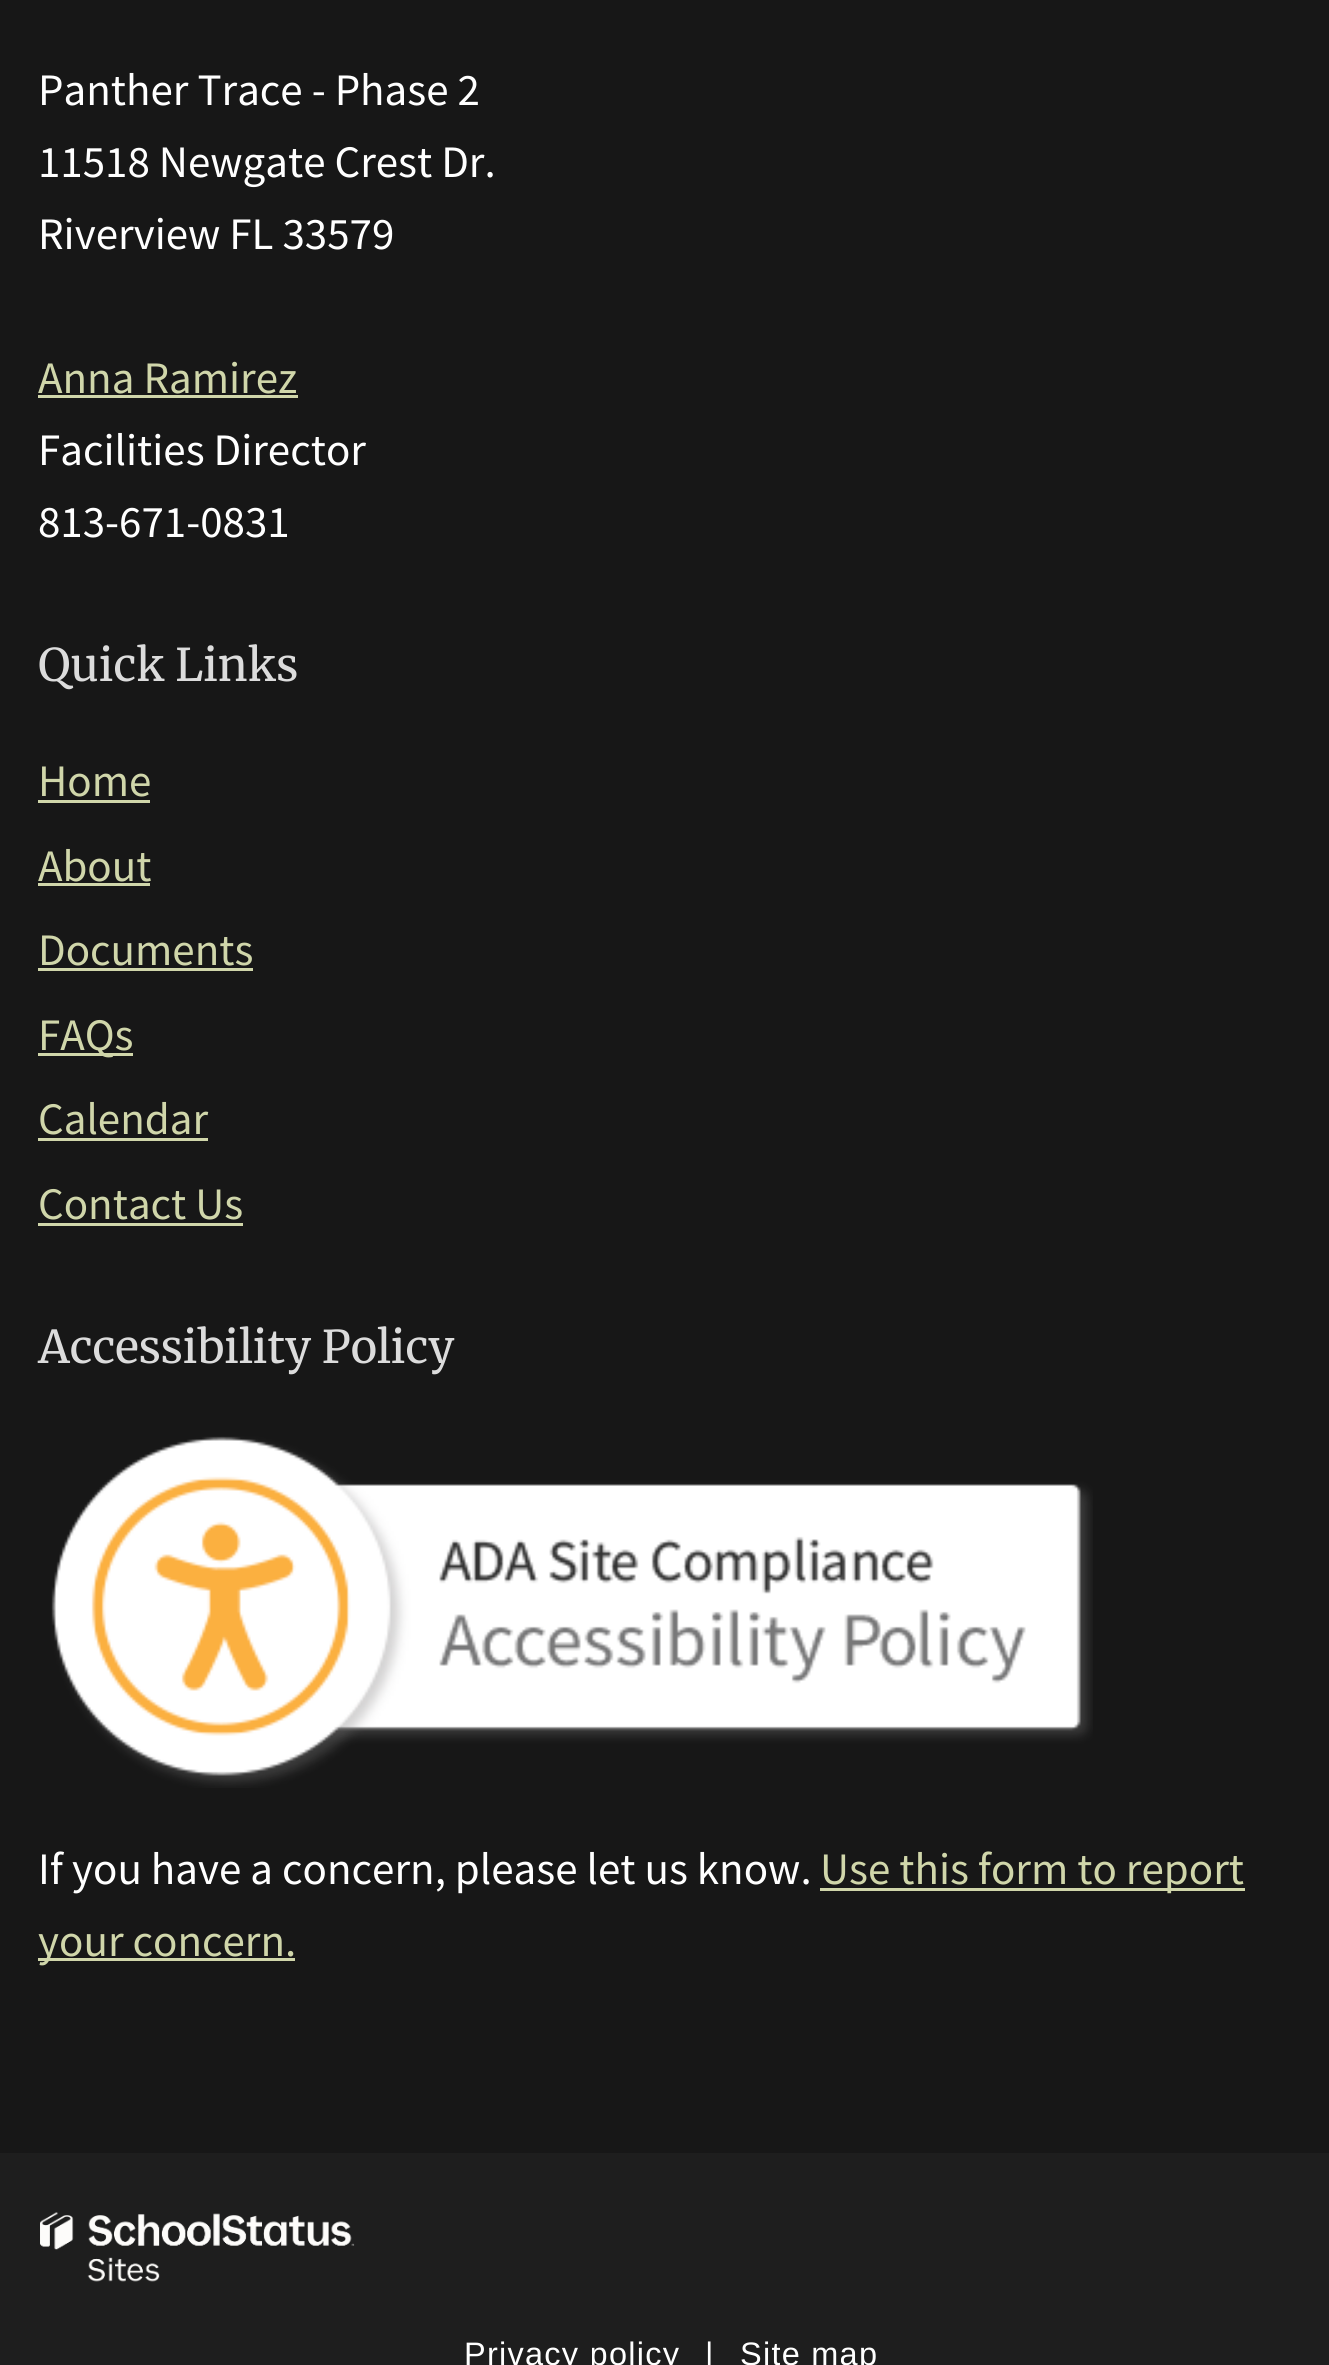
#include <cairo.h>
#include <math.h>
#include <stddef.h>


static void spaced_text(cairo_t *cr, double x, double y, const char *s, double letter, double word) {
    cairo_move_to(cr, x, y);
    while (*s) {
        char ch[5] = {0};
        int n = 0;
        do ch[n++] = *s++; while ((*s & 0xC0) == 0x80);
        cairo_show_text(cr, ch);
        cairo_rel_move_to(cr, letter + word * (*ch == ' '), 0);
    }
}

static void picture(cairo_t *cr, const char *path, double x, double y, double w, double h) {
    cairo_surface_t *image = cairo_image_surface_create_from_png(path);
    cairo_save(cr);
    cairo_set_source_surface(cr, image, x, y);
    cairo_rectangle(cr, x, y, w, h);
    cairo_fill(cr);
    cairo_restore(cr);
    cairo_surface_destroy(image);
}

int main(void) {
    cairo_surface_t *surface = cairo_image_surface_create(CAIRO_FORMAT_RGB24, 1329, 2365);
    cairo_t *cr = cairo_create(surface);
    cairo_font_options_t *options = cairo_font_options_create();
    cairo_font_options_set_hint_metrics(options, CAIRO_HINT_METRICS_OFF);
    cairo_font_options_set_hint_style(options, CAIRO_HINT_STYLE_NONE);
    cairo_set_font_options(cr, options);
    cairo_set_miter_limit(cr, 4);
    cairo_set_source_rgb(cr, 0.09, 0.09, 0.09);
    cairo_paint(cr);
    cairo_select_font_face(cr, "Source Sans Pro", CAIRO_FONT_SLANT_NORMAL, CAIRO_FONT_WEIGHT_NORMAL);
    cairo_set_font_size(cr, 45);
    cairo_set_source_rgb(cr, 1, 1, 1);
    cairo_move_to(cr, 38, 105);
    cairo_show_text(cr, "Panther Trace - Phase 2");
    cairo_move_to(cr, 38, 177);
    cairo_show_text(cr, "11518 Newgate Crest Dr.");
    cairo_move_to(cr, 38, 249);
    cairo_show_text(cr, "Riverview FL 33579");
    cairo_set_source_rgb(cr, 0.816, 0.839, 0.667);
    cairo_move_to(cr, 38, 393);
    cairo_show_text(cr, "Anna Ramirez");
    cairo_rectangle(cr, 38, 395, 260, 3);
    cairo_fill(cr);
    cairo_set_source_rgb(cr, 1, 1, 1);
    cairo_move_to(cr, 38, 465);
    cairo_show_text(cr, "Facilities Director");
    cairo_move_to(cr, 38, 537);
    cairo_show_text(cr, "813-671-0831");
    cairo_select_font_face(cr, "Merriweather Light", CAIRO_FONT_SLANT_NORMAL, CAIRO_FONT_WEIGHT_NORMAL);
    cairo_set_source_rgb(cr, 0.863, 0.863, 0.863);
    cairo_move_to(cr, 38, 681);
    cairo_show_text(cr, "Quick Links");
    cairo_select_font_face(cr, "Source Sans Pro", CAIRO_FONT_SLANT_NORMAL, CAIRO_FONT_WEIGHT_NORMAL);
    cairo_set_source_rgb(cr, 0.816, 0.839, 0.667);
    cairo_move_to(cr, 38, 796);
    cairo_show_text(cr, "Home");
    cairo_rectangle(cr, 38, 800, 112, 3);
    cairo_fill(cr);
    cairo_move_to(cr, 38, 881);
    cairo_show_text(cr, "About");
    cairo_rectangle(cr, 38, 883, 112, 3);
    cairo_fill(cr);
    cairo_move_to(cr, 38, 965);
    cairo_show_text(cr, "Documents");
    cairo_rectangle(cr, 38, 968, 215, 3);
    cairo_fill(cr);
    cairo_rectangle(cr, 38, 1053, 95, 3);
    cairo_fill(cr);
    cairo_move_to(cr, 38, 1050);
    cairo_show_text(cr, "FAQs");
    cairo_move_to(cr, 38, 1134);
    cairo_show_text(cr, "Calendar");
    cairo_rectangle(cr, 38, 1138, 170, 3);
    cairo_fill(cr);
    cairo_move_to(cr, 38, 1219);
    cairo_show_text(cr, "Contact Us");
    cairo_rectangle(cr, 38, 1223, 205, 3);
    cairo_fill(cr);
    cairo_select_font_face(cr, "Merriweather Light", CAIRO_FONT_SLANT_NORMAL, CAIRO_FONT_WEIGHT_NORMAL);
    cairo_set_source_rgb(cr, 0.863, 0.863, 0.863);
    cairo_move_to(cr, 38, 1363);
    cairo_show_text(cr, "Accessibility Policy");
    picture(cr, "img1.png", 51, 1436, 1042, 352);
    cairo_select_font_face(cr, "Source Sans Pro", CAIRO_FONT_SLANT_NORMAL, CAIRO_FONT_WEIGHT_NORMAL);
    cairo_set_source_rgb(cr, 1, 1, 1);
    cairo_move_to(cr, 38, 1884);
    cairo_show_text(cr, "If you have a concern, please let us know.");
    cairo_set_source_rgb(cr, 0.816, 0.839, 0.667);
    cairo_rectangle(cr, 820, 1888, 425, 3);
    cairo_fill(cr);
    cairo_move_to(cr, 820, 1884);
    cairo_show_text(cr, "Use this form to report");
    cairo_rectangle(cr, 38, 1958, 257, 3);
    cairo_fill(cr);
    cairo_move_to(cr, 38, 1956);
    cairo_show_text(cr, "your concern.");
    cairo_set_source_rgb(cr, 0.118, 0.118, 0.118);
    cairo_rectangle(cr, 0, 2153, 1329, 212);
    cairo_fill(cr);
    picture(cr, "img2.png", 40, 2212, 315, 70);
    cairo_select_font_face(cr, "Liberation Sans", CAIRO_FONT_SLANT_NORMAL, CAIRO_FONT_WEIGHT_NORMAL);
    cairo_set_font_size(cr, 32.5);
    cairo_set_source_rgb(cr, 1, 1, 1);
    spaced_text(cr, 464, 2365, "Privacy policy", 1.25, 0);
    spaced_text(cr, 705, 2365, "|", 1.25, 0);
    spaced_text(cr, 740, 2365, "Site map", 1.25, 0);
    cairo_surface_write_to_png(surface, "page.png");
    cairo_font_options_destroy(options);
    cairo_destroy(cr);
    cairo_surface_destroy(surface);
    return 0;
}
